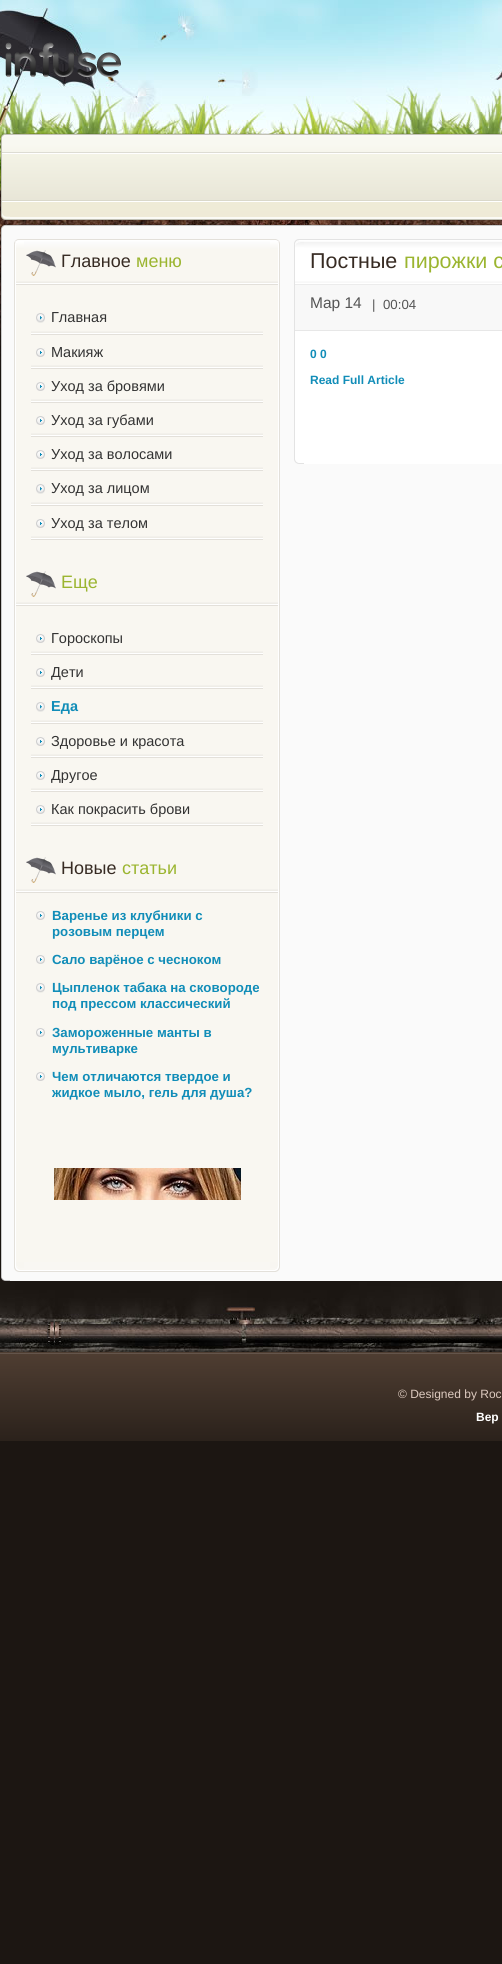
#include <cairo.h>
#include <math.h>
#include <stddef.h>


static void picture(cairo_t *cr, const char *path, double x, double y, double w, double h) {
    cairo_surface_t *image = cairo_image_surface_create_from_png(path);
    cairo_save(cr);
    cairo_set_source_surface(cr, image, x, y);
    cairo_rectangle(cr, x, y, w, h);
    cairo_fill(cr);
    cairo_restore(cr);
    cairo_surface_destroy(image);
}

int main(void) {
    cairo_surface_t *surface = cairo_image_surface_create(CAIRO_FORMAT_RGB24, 502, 1964);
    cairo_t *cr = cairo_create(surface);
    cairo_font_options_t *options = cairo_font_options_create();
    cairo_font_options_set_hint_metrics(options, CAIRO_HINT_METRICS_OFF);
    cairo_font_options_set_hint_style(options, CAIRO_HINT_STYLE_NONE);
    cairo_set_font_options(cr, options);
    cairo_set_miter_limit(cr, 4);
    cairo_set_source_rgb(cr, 0.11, 0.086, 0.071);
    cairo_paint(cr);
    picture(cr, "img1.png", 0, 0, 502, 368);
    picture(cr, "img2.png", 5, 42, 116, 35);
    picture(cr, "img3.png", 10, 133, 492, 10);
    picture(cr, "img4.png", 0, 133, 10, 10);
    cairo_set_source_rgb(cr, 0.937, 0.918, 0.843);
    cairo_rectangle(cr, 2, 202, 500, 9);
    cairo_fill(cr);
    picture(cr, "img5.png", 2, 143, 500, 9);
    picture(cr, "img6.png", 0, 143, 2, 68);
    picture(cr, "img7.png", 2, 152, 500, 50);
    picture(cr, "img8.png", 10, 211, 492, 10);
    picture(cr, "img9.png", 0, 211, 10, 10);
    picture(cr, "img10.png", 10, 224, 492, 10);
    picture(cr, "img11.png", 0, 224, 10, 10);
    cairo_set_source_rgb(cr, 0.98, 0.98, 0.98);
    cairo_rectangle(cr, 2, 234, 500, 1038);
    cairo_fill(cr);
    picture(cr, "img12.png", 0, 234, 2, 1038);
    picture(cr, "img13.png", 24, 239, 246, 10);
    picture(cr, "img14.png", 14, 239, 10, 10);
    picture(cr, "img15.png", 270, 239, 10, 10);
    cairo_set_source_rgb(cr, 0.973, 0.965, 0.945);
    cairo_rectangle(cr, 16, 249, 262, 1013);
    cairo_fill(cr);
    picture(cr, "img16.png", 14, 249, 2, 1013);
    picture(cr, "img17.png", 278, 249, 2, 1013);
    picture(cr, "img18.png", 26, 250, 30, 26);
    picture(cr, "img19.png", 16, 281, 262, 4);
    cairo_select_font_face(cr, "Liberation Sans", CAIRO_FONT_SLANT_NORMAL, CAIRO_FONT_WEIGHT_NORMAL);
    cairo_set_font_size(cr, 18);
    cairo_set_source_rgb(cr, 0.216, 0.169, 0.137);
    cairo_move_to(cr, 61, 267);
    cairo_show_text(cr, "Главное");
    cairo_set_source_rgb(cr, 0.608, 0.71, 0.188);
    cairo_move_to(cr, 136, 267);
    cairo_show_text(cr, "меню");
    picture(cr, "img20.png", 31, 331, 232, 4);
    picture(cr, "img21.png", 36, 313, 9, 10);
    cairo_set_font_size(cr, 14.5);
    cairo_set_source_rgb(cr, 0.2, 0.2, 0.2);
    cairo_move_to(cr, 51, 322);
    cairo_show_text(cr, "Главная");
    picture(cr, "img20.png", 31, 365, 232, 4);
    picture(cr, "img22.png", 36, 348, 9, 9);
    cairo_move_to(cr, 51, 357);
    cairo_show_text(cr, "Макияж");
    picture(cr, "img20.png", 31, 399, 232, 4);
    picture(cr, "img22.png", 36, 382, 9, 9);
    cairo_move_to(cr, 51, 391);
    cairo_show_text(cr, "Уход за бровями");
    picture(cr, "img20.png", 31, 433, 232, 4);
    picture(cr, "img22.png", 36, 416, 9, 9);
    cairo_move_to(cr, 51, 425);
    cairo_show_text(cr, "Уход за губами");
    picture(cr, "img20.png", 31, 467, 232, 4);
    picture(cr, "img22.png", 36, 450, 9, 9);
    cairo_move_to(cr, 51, 459);
    cairo_show_text(cr, "Уход за волосами");
    picture(cr, "img20.png", 31, 502, 232, 4);
    picture(cr, "img21.png", 36, 484, 9, 10);
    cairo_move_to(cr, 51, 493);
    cairo_show_text(cr, "Уход за лицом");
    picture(cr, "img20.png", 31, 536, 232, 4);
    picture(cr, "img22.png", 36, 519, 9, 9);
    cairo_move_to(cr, 51, 528);
    cairo_show_text(cr, "Уход за телом");
    picture(cr, "img18.png", 26, 571, 30, 26);
    picture(cr, "img19.png", 16, 602, 262, 4);
    cairo_set_font_size(cr, 18);
    cairo_set_source_rgb(cr, 0.608, 0.71, 0.188);
    cairo_move_to(cr, 61, 588);
    cairo_show_text(cr, "Еще");
    picture(cr, "img20.png", 31, 651, 232, 4);
    picture(cr, "img22.png", 36, 634, 9, 9);
    cairo_set_font_size(cr, 14.5);
    cairo_set_source_rgb(cr, 0.2, 0.2, 0.2);
    cairo_move_to(cr, 51, 643);
    cairo_show_text(cr, "Гороскопы");
    picture(cr, "img20.png", 31, 685, 232, 4);
    picture(cr, "img22.png", 36, 668, 9, 9);
    cairo_move_to(cr, 51, 677);
    cairo_show_text(cr, "Дети");
    picture(cr, "img20.png", 31, 720, 232, 4);
    picture(cr, "img21.png", 36, 702, 9, 10);
    cairo_select_font_face(cr, "Liberation Sans", CAIRO_FONT_SLANT_NORMAL, CAIRO_FONT_WEIGHT_BOLD);
    cairo_set_source_rgb(cr, 0.067, 0.553, 0.722);
    cairo_move_to(cr, 51, 711);
    cairo_show_text(cr, "Еда");
    picture(cr, "img20.png", 31, 754, 232, 4);
    picture(cr, "img22.png", 36, 737, 9, 9);
    cairo_select_font_face(cr, "Liberation Sans", CAIRO_FONT_SLANT_NORMAL, CAIRO_FONT_WEIGHT_NORMAL);
    cairo_set_source_rgb(cr, 0.2, 0.2, 0.2);
    cairo_move_to(cr, 51, 746);
    cairo_show_text(cr, "Здоровье и красота");
    picture(cr, "img20.png", 31, 788, 232, 4);
    picture(cr, "img22.png", 36, 771, 9, 9);
    cairo_move_to(cr, 51, 780);
    cairo_show_text(cr, "Другое");
    picture(cr, "img20.png", 31, 822, 232, 4);
    picture(cr, "img22.png", 36, 805, 9, 9);
    cairo_move_to(cr, 51, 814);
    cairo_show_text(cr, "Как покрасить брови");
    picture(cr, "img18.png", 26, 857, 30, 26);
    picture(cr, "img19.png", 16, 889, 262, 4);
    cairo_set_font_size(cr, 18);
    cairo_set_source_rgb(cr, 0.216, 0.169, 0.137);
    cairo_move_to(cr, 61, 874);
    cairo_show_text(cr, "Новые");
    cairo_set_source_rgb(cr, 0.608, 0.71, 0.188);
    cairo_move_to(cr, 122, 874);
    cairo_show_text(cr, "статьи");
    picture(cr, "img23.png", 36, 911, 9, 9);
    cairo_select_font_face(cr, "Liberation Sans", CAIRO_FONT_SLANT_NORMAL, CAIRO_FONT_WEIGHT_BOLD);
    cairo_set_font_size(cr, 13.25);
    cairo_set_source_rgb(cr, 0.067, 0.553, 0.722);
    cairo_move_to(cr, 52, 920);
    cairo_show_text(cr, "Варенье из клубники с");
    cairo_move_to(cr, 52, 936);
    cairo_show_text(cr, "розовым перцем");
    picture(cr, "img24.png", 36, 955, 9, 9);
    cairo_move_to(cr, 52, 964);
    cairo_show_text(cr, "Сало варёное с чесноком");
    picture(cr, "img25.png", 36, 983, 9, 10);
    cairo_move_to(cr, 52, 992);
    cairo_show_text(cr, "Цыпленок табака на сковороде");
    cairo_move_to(cr, 52, 1008);
    cairo_show_text(cr, "под прессом классический");
    picture(cr, "img23.png", 36, 1028, 9, 9);
    cairo_move_to(cr, 52, 1037);
    cairo_show_text(cr, "Замороженные манты в");
    cairo_move_to(cr, 52, 1053);
    cairo_show_text(cr, "мультиварке");
    picture(cr, "img23.png", 36, 1072, 9, 9);
    cairo_move_to(cr, 52, 1081);
    cairo_show_text(cr, "Чем отличаются твердое и");
    cairo_move_to(cr, 52, 1097);
    cairo_show_text(cr, "жидкое мыло, гель для душа?");
    picture(cr, "img26.png", 54, 1168, 187, 32);
    picture(cr, "img27.png", 24, 1262, 246, 10);
    picture(cr, "img28.png", 14, 1262, 10, 10);
    picture(cr, "img29.png", 270, 1262, 10, 10);
    picture(cr, "img30.png", 304, 239, 198, 10);
    picture(cr, "img31.png", 294, 239, 10, 10);
    cairo_set_source_rgb(cr, 1, 1, 1);
    cairo_rectangle(cr, 295, 249, 207, 205);
    cairo_fill(cr);
    cairo_set_source_rgb(cr, 0.89, 0.89, 0.89);
    cairo_rectangle(cr, 294, 249, 1, 205);
    cairo_fill(cr);
    picture(cr, "img32.png", 295, 281, 207, 4);
    cairo_select_font_face(cr, "Liberation Sans", CAIRO_FONT_SLANT_NORMAL, CAIRO_FONT_WEIGHT_NORMAL);
    cairo_set_font_size(cr, 21.5);
    cairo_set_source_rgb(cr, 0.216, 0.169, 0.137);
    cairo_move_to(cr, 310, 268);
    cairo_show_text(cr, "Постные");
    cairo_set_source_rgb(cr, 0.608, 0.71, 0.188);
    cairo_move_to(cr, 404, 268);
    cairo_show_text(cr, "пирожки с");
    cairo_set_source_rgb(cr, 0.969, 0.969, 0.969);
    cairo_rectangle(cr, 295, 285, 207, 45);
    cairo_fill(cr);
    cairo_set_source_rgb(cr, 0.906, 0.906, 0.906);
    cairo_rectangle(cr, 295, 330, 207, 1);
    cairo_fill(cr);
    cairo_set_font_size(cr, 15.5);
    cairo_set_source_rgb(cr, 0.333, 0.333, 0.333);
    cairo_move_to(cr, 310, 308);
    cairo_show_text(cr, "Мар 14");
    cairo_set_font_size(cr, 13.25);
    cairo_move_to(cr, 372, 309);
    cairo_show_text(cr, "|");
    cairo_move_to(cr, 383, 309);
    cairo_show_text(cr, "00:04");
    cairo_select_font_face(cr, "Liberation Sans", CAIRO_FONT_SLANT_NORMAL, CAIRO_FONT_WEIGHT_BOLD);
    cairo_set_font_size(cr, 12);
    cairo_set_source_rgb(cr, 0.067, 0.553, 0.722);
    cairo_move_to(cr, 310, 358);
    cairo_show_text(cr, "0 0");
    cairo_move_to(cr, 310, 384);
    cairo_show_text(cr, "Read Full Article");
    cairo_set_source_rgb(cr, 1, 1, 1);
    cairo_rectangle(cr, 304, 454, 198, 10);
    cairo_fill(cr);
    picture(cr, "img33.png", 294, 454, 10, 10);
    cairo_set_source_rgb(cr, 0.98, 0.98, 0.98);
    cairo_rectangle(cr, 10, 1272, 492, 9);
    cairo_fill(cr);
    picture(cr, "img34.png", 1, 1272, 9, 9);
    picture(cr, "img35.png", 0, 1282, 502, 70);
    picture(cr, "img36.png", 0, 1352, 502, 89);
    cairo_select_font_face(cr, "Liberation Sans", CAIRO_FONT_SLANT_NORMAL, CAIRO_FONT_WEIGHT_NORMAL);
    cairo_set_source_rgb(cr, 0.867, 0.792, 0.749);
    cairo_move_to(cr, 398, 1398);
    cairo_show_text(cr, "© Designed by Roc");
    cairo_select_font_face(cr, "Liberation Sans", CAIRO_FONT_SLANT_NORMAL, CAIRO_FONT_WEIGHT_BOLD);
    cairo_set_source_rgb(cr, 1, 1, 1);
    cairo_move_to(cr, 476, 1421);
    cairo_show_text(cr, "Вер");
    cairo_surface_write_to_png(surface, "page.png");
    cairo_font_options_destroy(options);
    cairo_destroy(cr);
    cairo_surface_destroy(surface);
    return 0;
}
